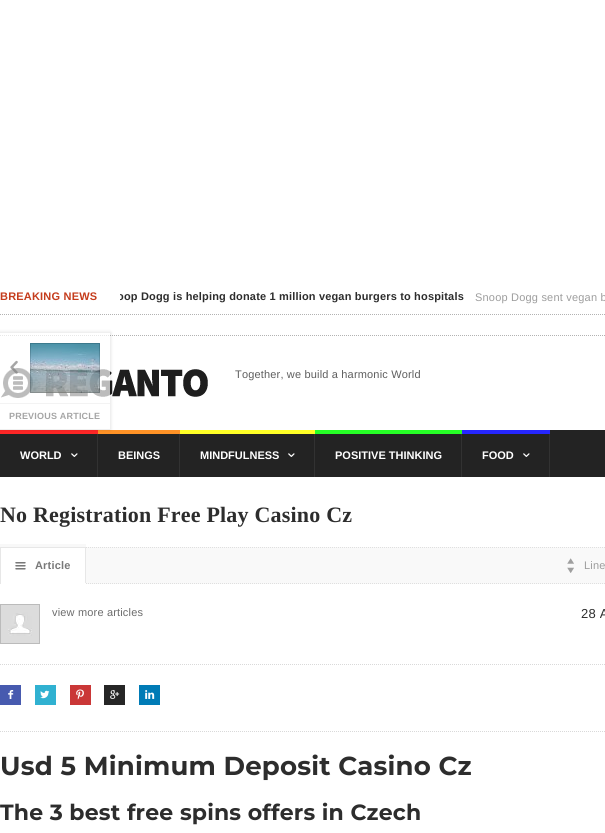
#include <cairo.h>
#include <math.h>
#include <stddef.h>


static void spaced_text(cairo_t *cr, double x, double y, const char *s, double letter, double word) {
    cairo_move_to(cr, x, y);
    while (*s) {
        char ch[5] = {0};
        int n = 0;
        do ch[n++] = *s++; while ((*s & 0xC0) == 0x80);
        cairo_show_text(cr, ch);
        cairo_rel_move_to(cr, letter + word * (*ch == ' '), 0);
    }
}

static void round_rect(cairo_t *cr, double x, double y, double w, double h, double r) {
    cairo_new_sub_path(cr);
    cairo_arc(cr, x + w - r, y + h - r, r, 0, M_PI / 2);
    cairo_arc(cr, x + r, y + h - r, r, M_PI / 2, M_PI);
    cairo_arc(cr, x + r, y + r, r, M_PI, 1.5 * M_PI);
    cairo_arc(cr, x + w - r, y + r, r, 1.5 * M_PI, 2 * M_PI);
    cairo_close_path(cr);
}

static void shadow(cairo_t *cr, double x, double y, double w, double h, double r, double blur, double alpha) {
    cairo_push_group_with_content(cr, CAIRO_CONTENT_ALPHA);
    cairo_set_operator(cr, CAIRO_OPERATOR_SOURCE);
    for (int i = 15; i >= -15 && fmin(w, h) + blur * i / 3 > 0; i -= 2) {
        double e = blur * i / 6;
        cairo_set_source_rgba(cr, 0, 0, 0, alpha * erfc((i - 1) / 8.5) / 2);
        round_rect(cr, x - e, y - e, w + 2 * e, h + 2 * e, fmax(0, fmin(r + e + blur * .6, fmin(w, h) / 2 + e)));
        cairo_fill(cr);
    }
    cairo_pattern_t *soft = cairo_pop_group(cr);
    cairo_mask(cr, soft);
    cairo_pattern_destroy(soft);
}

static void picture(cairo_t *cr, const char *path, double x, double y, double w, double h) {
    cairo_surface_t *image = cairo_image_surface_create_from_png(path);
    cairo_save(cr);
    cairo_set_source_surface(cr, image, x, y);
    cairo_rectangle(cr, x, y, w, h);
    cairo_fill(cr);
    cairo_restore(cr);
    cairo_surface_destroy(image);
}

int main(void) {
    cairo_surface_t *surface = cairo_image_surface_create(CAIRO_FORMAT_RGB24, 605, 833);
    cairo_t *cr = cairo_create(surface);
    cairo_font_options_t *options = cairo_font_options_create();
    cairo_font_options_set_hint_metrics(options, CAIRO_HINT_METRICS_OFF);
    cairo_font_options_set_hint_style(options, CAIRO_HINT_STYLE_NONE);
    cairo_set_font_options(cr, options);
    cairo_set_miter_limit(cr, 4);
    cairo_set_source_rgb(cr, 1, 1, 1);
    cairo_paint(cr);
    cairo_new_path(cr);
    cairo_move_to(cr, 0, 314.5);
    cairo_line_to(cr, 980, 314.5);
    cairo_set_source_rgb(cr, 0.698, 0.698, 0.698);
    cairo_set_line_width(cr, 1);
    cairo_set_dash(cr, (double[]){1, 1}, 2, 0);
    cairo_stroke(cr);
    cairo_select_font_face(cr, "Liberation Sans", CAIRO_FONT_SLANT_NORMAL, CAIRO_FONT_WEIGHT_BOLD);
    cairo_set_font_size(cr, 11);
    cairo_set_source_rgb(cr, 0.773, 0.235, 0.11);
    spaced_text(cr, 0, 300, "BREAKING NEWS", 0.2, 0);
    cairo_save(cr);
    cairo_rectangle(cr, 120, 290, 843, 14);
    cairo_clip(cr);
    cairo_set_source_rgb(cr, 0.176, 0.176, 0.176);
    spaced_text(cr, 117, 300, "oop Dogg is helping donate 1 million vegan burgers to hospitals", 0.17, 0);
    cairo_restore(cr);
    cairo_select_font_face(cr, "Liberation Sans", CAIRO_FONT_SLANT_NORMAL, CAIRO_FONT_WEIGHT_NORMAL);
    cairo_set_source_rgb(cr, 0.616, 0.616, 0.616);
    spaced_text(cr, 475, 301, "Snoop Dogg sent vegan b", 0.2, 0);
    cairo_new_path(cr);
    cairo_move_to(cr, 0, 335.5);
    cairo_line_to(cr, 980, 335.5);
    cairo_set_source_rgb(cr, 0.698, 0.698, 0.698);
    cairo_stroke(cr);
    picture(cr, "img1.png", 0, 368, 208, 30);
    cairo_set_source_rgb(cr, 0.369, 0.369, 0.369);
    spaced_text(cr, 235, 378, "Together, we build a harmonic World", 0.17, 0);
    cairo_set_source_rgb(cr, 0.137, 0.137, 0.137);
    cairo_rectangle(cr, 550, 430, 55, 47);
    cairo_fill(cr);
    cairo_rectangle(cr, 0, 434, 97, 43);
    cairo_fill(cr);
    cairo_set_source_rgb(cr, 0.196, 0.196, 0.196);
    cairo_rectangle(cr, 97, 434, 1, 43);
    cairo_fill(cr);
    cairo_set_source_rgb(cr, 1, 0.149, 0.149);
    cairo_rectangle(cr, 0, 430, 98, 4);
    cairo_fill(cr);
    cairo_select_font_face(cr, "Liberation Sans", CAIRO_FONT_SLANT_NORMAL, CAIRO_FONT_WEIGHT_BOLD);
    cairo_set_source_rgb(cr, 1, 1, 1);
    cairo_move_to(cr, 20, 459);
    cairo_show_text(cr, "WORLD");
    picture(cr, "img2.png", 71, 453, 7, 4);
    cairo_set_source_rgb(cr, 0.137, 0.137, 0.137);
    cairo_rectangle(cr, 98, 434, 81, 43);
    cairo_fill(cr);
    cairo_set_source_rgb(cr, 0.196, 0.196, 0.196);
    cairo_rectangle(cr, 179, 434, 1, 43);
    cairo_fill(cr);
    cairo_set_source_rgb(cr, 1, 0.573, 0.149);
    cairo_rectangle(cr, 98, 430, 82, 4);
    cairo_fill(cr);
    cairo_set_source_rgb(cr, 1, 1, 1);
    cairo_move_to(cr, 118, 459);
    cairo_show_text(cr, "BEINGS");
    cairo_set_source_rgb(cr, 0.137, 0.137, 0.137);
    cairo_rectangle(cr, 180, 434, 134, 43);
    cairo_fill(cr);
    cairo_set_source_rgb(cr, 0.196, 0.196, 0.196);
    cairo_rectangle(cr, 314, 434, 1, 43);
    cairo_fill(cr);
    cairo_set_source_rgb(cr, 1, 1, 0.149);
    cairo_rectangle(cr, 180, 430, 135, 4);
    cairo_fill(cr);
    cairo_set_source_rgb(cr, 1, 1, 1);
    cairo_move_to(cr, 200, 459);
    cairo_show_text(cr, "MINDFULNESS");
    picture(cr, "img2.png", 288, 453, 7, 4);
    cairo_set_source_rgb(cr, 0.137, 0.137, 0.137);
    cairo_rectangle(cr, 315, 434, 146, 43);
    cairo_fill(cr);
    cairo_set_source_rgb(cr, 0.196, 0.196, 0.196);
    cairo_rectangle(cr, 461, 434, 1, 43);
    cairo_fill(cr);
    cairo_set_source_rgb(cr, 0.149, 1, 0.149);
    cairo_rectangle(cr, 315, 430, 147, 4);
    cairo_fill(cr);
    cairo_set_source_rgb(cr, 1, 1, 1);
    cairo_move_to(cr, 335, 459);
    cairo_show_text(cr, "POSITIVE THINKING");
    cairo_set_source_rgb(cr, 0.137, 0.137, 0.137);
    cairo_rectangle(cr, 462, 434, 87, 43);
    cairo_fill(cr);
    cairo_set_source_rgb(cr, 0.196, 0.196, 0.196);
    cairo_rectangle(cr, 549, 434, 1, 43);
    cairo_fill(cr);
    cairo_set_source_rgb(cr, 0.149, 0.149, 1);
    cairo_rectangle(cr, 462, 430, 88, 4);
    cairo_fill(cr);
    cairo_set_source_rgb(cr, 1, 1, 1);
    cairo_move_to(cr, 482, 459);
    cairo_show_text(cr, "FOOD");
    picture(cr, "img2.png", 523, 453, 7, 4);
    cairo_select_font_face(cr, "Liberation Serif", CAIRO_FONT_SLANT_NORMAL, CAIRO_FONT_WEIGHT_BOLD);
    cairo_set_font_size(cr, 22);
    cairo_set_source_rgb(cr, 0.176, 0.176, 0.176);
    spaced_text(cr, 0, 522, "No Registration Free Play Casino Cz", 0.2, 0);
    cairo_set_source_rgb(cr, 0.973, 0.973, 0.973);
    cairo_rectangle(cr, 86, 547, 519, 37);
    cairo_fill(cr);
    cairo_new_path(cr);
    cairo_move_to(cr, 0, 547.5);
    cairo_line_to(cr, 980, 547.5);
    cairo_set_source_rgb(cr, 0.875, 0.875, 0.875);
    cairo_stroke(cr);
    cairo_new_path(cr);
    cairo_move_to(cr, 0, 583.5);
    cairo_line_to(cr, 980, 583.5);
    cairo_stroke(cr);
    cairo_set_source_rgb(cr, 0.969, 0.969, 0.969);
    cairo_rectangle(cr, 0, 544, 86, 3);
    cairo_fill(cr);
    cairo_set_source_rgb(cr, 0.906, 0.906, 0.906);
    cairo_rectangle(cr, 0, 547, 86, 1);
    cairo_fill(cr);
    cairo_rectangle(cr, 85, 547, 1, 37);
    cairo_fill(cr);
    cairo_set_source_rgb(cr, 1, 1, 1);
    cairo_rectangle(cr, 0, 583, 86, 1);
    cairo_fill(cr);
    cairo_set_source_rgb(cr, 0.906, 0.906, 0.906);
    cairo_rectangle(cr, 0, 547, 1, 37);
    cairo_fill(cr);
    picture(cr, "img3.png", 15, 562, 11, 8);
    cairo_select_font_face(cr, "Liberation Sans", CAIRO_FONT_SLANT_NORMAL, CAIRO_FONT_WEIGHT_BOLD);
    cairo_set_font_size(cr, 11);
    cairo_set_source_rgb(cr, 0.475, 0.475, 0.475);
    spaced_text(cr, 35, 569, "Article", 0.17, 0);
    picture(cr, "img4.png", 567, 558, 7, 15);
    cairo_select_font_face(cr, "Liberation Sans", CAIRO_FONT_SLANT_NORMAL, CAIRO_FONT_WEIGHT_NORMAL);
    cairo_set_source_rgb(cr, 0.616, 0.616, 0.616);
    spaced_text(cr, 584, 569, "Line", 0.2, 0);
    cairo_new_path(cr);
    cairo_move_to(cr, 0, 664.5);
    cairo_line_to(cr, 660, 664.5);
    cairo_set_source_rgb(cr, 0.851, 0.851, 0.851);
    cairo_stroke(cr);
    picture(cr, "img5.png", 1, 605, 38, 38);
    cairo_rectangle(cr, 0.5, 604.5, 39, 39);
    cairo_set_source_rgb(cr, 0.733, 0.733, 0.733);
    cairo_set_dash(cr, NULL, 0, 0);
    cairo_stroke(cr);
    cairo_set_source_rgb(cr, 0.424, 0.424, 0.424);
    spaced_text(cr, 52, 616, "view more articles", 0.17, 0);
    cairo_set_font_size(cr, 13);
    cairo_set_source_rgb(cr, 0.176, 0.176, 0.176);
    spaced_text(cr, 581, 618, "28 A", 0.2, 0);
    cairo_new_path(cr);
    cairo_move_to(cr, 0, 731.5);
    cairo_line_to(cr, 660, 731.5);
    cairo_set_source_rgb(cr, 0.851, 0.851, 0.851);
    cairo_set_dash(cr, (double[]){1, 1}, 2, 0);
    cairo_stroke(cr);
    cairo_set_source_rgb(cr, 0.278, 0.353, 0.686);
    cairo_rectangle(cr, 0, 685, 21, 20);
    cairo_fill(cr);
    picture(cr, "img6.png", 8, 690, 6, 9);
    cairo_set_source_rgb(cr, 0.188, 0.694, 0.82);
    cairo_rectangle(cr, 35, 685, 21, 20);
    cairo_fill(cr);
    picture(cr, "img7.png", 40, 690, 10, 9);
    cairo_set_source_rgb(cr, 0.792, 0.216, 0.216);
    cairo_rectangle(cr, 70, 685, 21, 20);
    cairo_fill(cr);
    picture(cr, "img8.png", 76, 689, 8, 11);
    cairo_set_source_rgb(cr, 0.149, 0.149, 0.149);
    cairo_rectangle(cr, 104, 685, 21, 20);
    cairo_fill(cr);
    picture(cr, "img9.png", 110, 690, 10, 9);
    cairo_set_source_rgb(cr, 0, 0.482, 0.714);
    cairo_rectangle(cr, 139, 685, 21, 20);
    cairo_fill(cr);
    picture(cr, "img10.png", 145, 690, 10, 9);
    cairo_select_font_face(cr, "Montserrat", CAIRO_FONT_SLANT_NORMAL, CAIRO_FONT_WEIGHT_BOLD);
    cairo_set_font_size(cr, 26);
    cairo_set_source_rgb(cr, 0.176, 0.176, 0.176);
    spaced_text(cr, 0, 775, "Usd 5 Minimum Deposit Casino Cz", 0.2, 0);
    cairo_set_font_size(cr, 22);
    spaced_text(cr, 0, 820, "The 3 best free spins offers in Czech", 0.2, 0);
    cairo_save(cr);
    cairo_set_fill_rule(cr, CAIRO_FILL_RULE_EVEN_ODD);
    cairo_new_path(cr);
    cairo_move_to(cr, 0, 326);
    cairo_line_to(cr, 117, 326);
    cairo_line_to(cr, 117, 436);
    cairo_line_to(cr, 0, 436);
    cairo_close_path(cr);
    cairo_move_to(cr, 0, 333);
    cairo_line_to(cr, 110, 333);
    cairo_line_to(cr, 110, 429);
    cairo_line_to(cr, 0, 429);
    cairo_close_path(cr);
    cairo_clip(cr);
    cairo_set_source_rgb(cr, 0, 0, 0);
    shadow(cr, -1, 332, 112, 98, 0, 1.5, 0.1);
    cairo_restore(cr);
    cairo_set_source_rgba(cr, 1, 1, 1, 0.7);
    cairo_rectangle(cr, 0, 335, 110, 63);
    cairo_fill(cr);
    picture(cr, "img11.png", 10, 360, 8, 14);
    cairo_rectangle(cr, 30.5, 343.5, 69, 49);
    cairo_set_source_rgba(cr, 0, 0, 0, 0.14);
    cairo_set_dash(cr, NULL, 0, 0);
    cairo_stroke(cr);
    picture(cr, "img12.png", 30, 343, 70, 50);
    cairo_rectangle(cr, 30.5, 343.5, 69, 49);
    cairo_set_source_rgba(cr, 0, 0, 0, 0.1);
    cairo_stroke(cr);
    cairo_set_source_rgb(cr, 0.953, 0.953, 0.953);
    cairo_rectangle(cr, 0, 403, 110, 1);
    cairo_fill(cr);
    cairo_select_font_face(cr, "Liberation Sans", CAIRO_FONT_SLANT_NORMAL, CAIRO_FONT_WEIGHT_BOLD);
    cairo_set_font_size(cr, 9);
    cairo_set_source_rgb(cr, 0.647, 0.647, 0.647);
    spaced_text(cr, 9, 419, "PREVIOUS ARTICLE", 0.2, 0);
    cairo_surface_write_to_png(surface, "page.png");
    cairo_font_options_destroy(options);
    cairo_destroy(cr);
    cairo_surface_destroy(surface);
    return 0;
}
